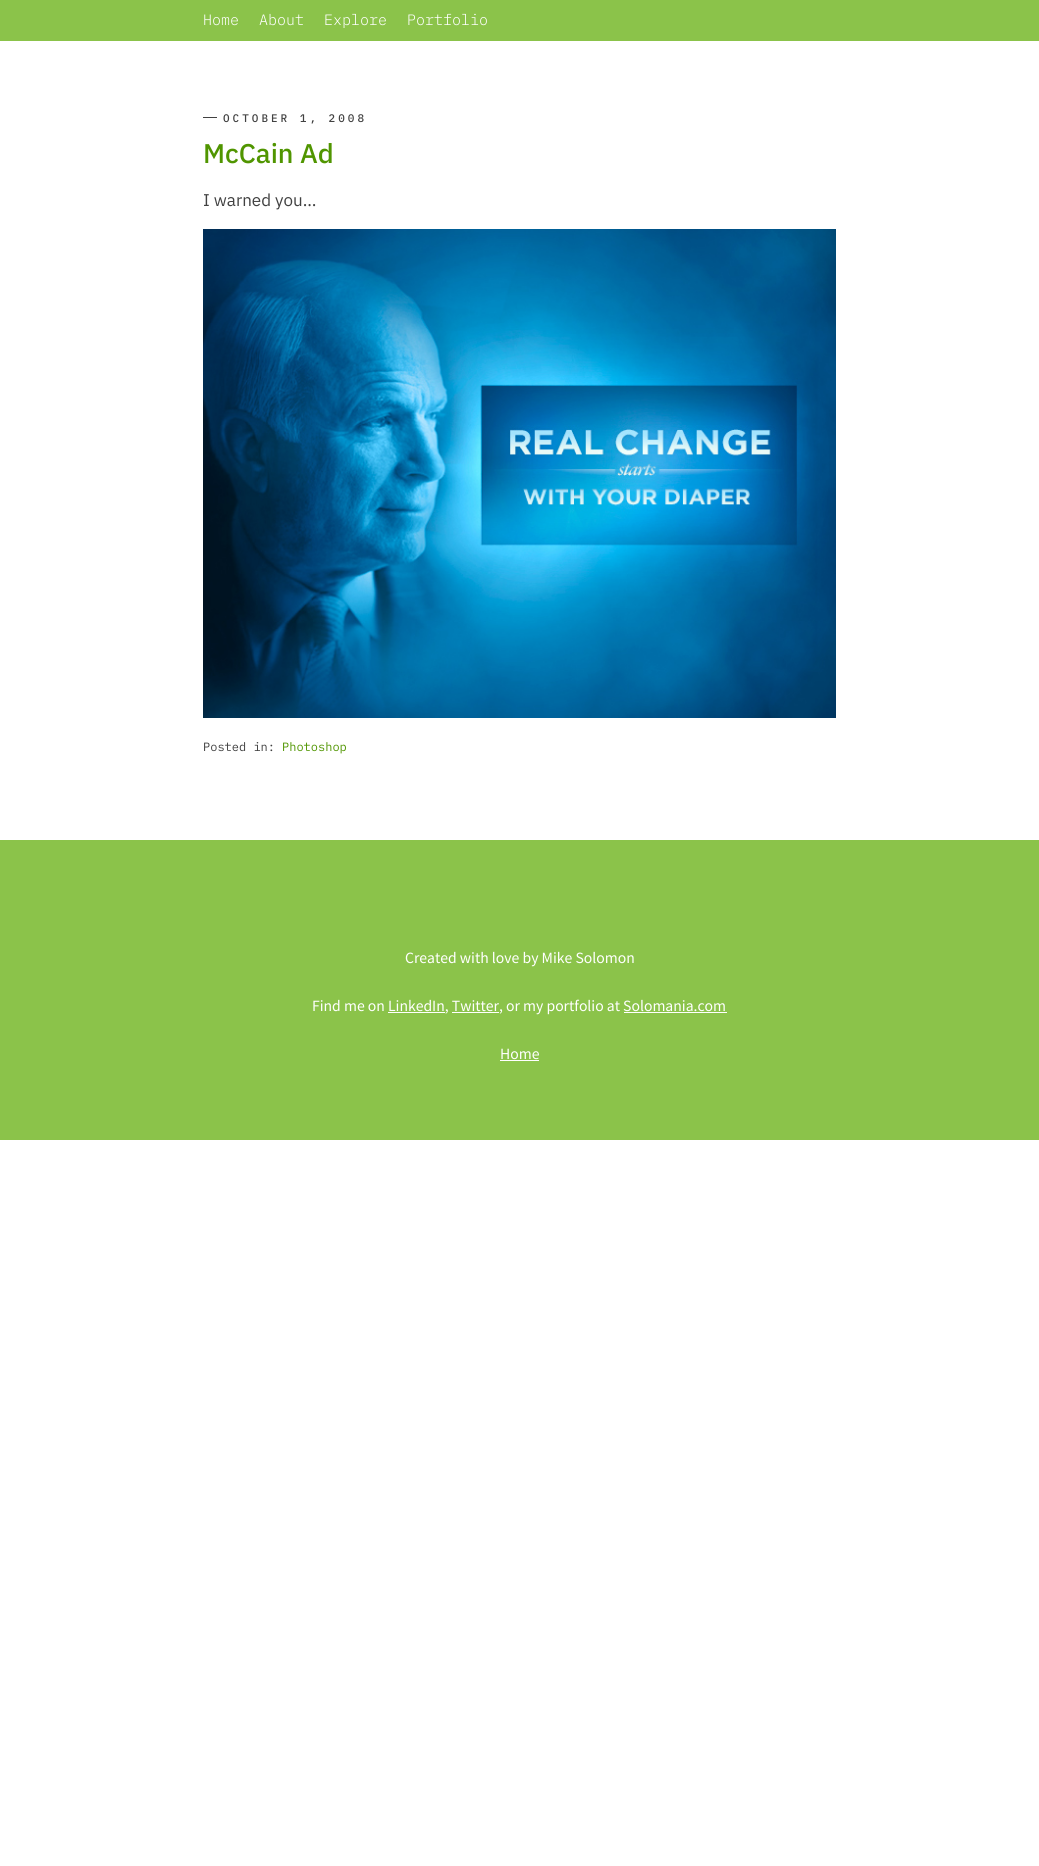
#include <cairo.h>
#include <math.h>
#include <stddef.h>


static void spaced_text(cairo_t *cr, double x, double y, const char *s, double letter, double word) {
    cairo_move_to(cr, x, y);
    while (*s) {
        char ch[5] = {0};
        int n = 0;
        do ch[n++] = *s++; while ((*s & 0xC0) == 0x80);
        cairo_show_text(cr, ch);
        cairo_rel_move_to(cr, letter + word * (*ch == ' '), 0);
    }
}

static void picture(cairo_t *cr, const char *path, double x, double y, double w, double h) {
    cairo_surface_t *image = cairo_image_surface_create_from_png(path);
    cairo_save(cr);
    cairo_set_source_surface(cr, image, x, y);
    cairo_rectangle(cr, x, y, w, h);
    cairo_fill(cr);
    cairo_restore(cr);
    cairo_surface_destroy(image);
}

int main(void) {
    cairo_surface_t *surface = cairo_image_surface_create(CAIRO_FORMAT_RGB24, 1039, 1866);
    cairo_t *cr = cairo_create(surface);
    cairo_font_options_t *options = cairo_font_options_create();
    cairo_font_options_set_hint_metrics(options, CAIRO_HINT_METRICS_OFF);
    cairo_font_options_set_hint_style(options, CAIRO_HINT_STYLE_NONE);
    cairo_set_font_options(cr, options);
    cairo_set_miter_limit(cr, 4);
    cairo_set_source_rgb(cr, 1, 1, 1);
    cairo_paint(cr);
    cairo_set_source_rgb(cr, 0.545, 0.765, 0.29);
    cairo_rectangle(cr, 0, 0, 1039, 41);
    cairo_fill(cr);
    cairo_select_font_face(cr, "IBM Plex Mono Light", CAIRO_FONT_SLANT_NORMAL, CAIRO_FONT_WEIGHT_NORMAL);
    cairo_set_font_size(cr, 15);
    cairo_set_source_rgb(cr, 1, 1, 1);
    cairo_move_to(cr, 203, 25);
    cairo_show_text(cr, "Home");
    cairo_move_to(cr, 259, 25);
    cairo_show_text(cr, "About");
    cairo_move_to(cr, 324, 25);
    cairo_show_text(cr, "Explore");
    cairo_move_to(cr, 407, 25);
    cairo_show_text(cr, "Portfolio");
    cairo_set_source_rgb(cr, 0.255, 0.255, 0.255);
    cairo_rectangle(cr, 203, 117, 14, 1);
    cairo_fill(cr);
    cairo_select_font_face(cr, "IBM Plex Mono Medium", CAIRO_FONT_SLANT_NORMAL, CAIRO_FONT_WEIGHT_NORMAL);
    cairo_set_font_size(cr, 11);
    spaced_text(cr, 223, 122, "OCTOBER 1, 2008", 3, 0);
    cairo_select_font_face(cr, "IBM Plex Sans Medium", CAIRO_FONT_SLANT_NORMAL, CAIRO_FONT_WEIGHT_NORMAL);
    cairo_set_font_size(cr, 27);
    cairo_set_source_rgb(cr, 0.314, 0.584, 0);
    cairo_move_to(cr, 203, 163);
    cairo_show_text(cr, "McCain Ad");
    cairo_select_font_face(cr, "IBM Plex Sans", CAIRO_FONT_SLANT_NORMAL, CAIRO_FONT_WEIGHT_NORMAL);
    cairo_set_font_size(cr, 17);
    cairo_set_source_rgb(cr, 0.255, 0.255, 0.255);
    cairo_move_to(cr, 203, 206);
    cairo_show_text(cr, "I warned you…");
    picture(cr, "img1.png", 203, 229, 633, 489);
    cairo_select_font_face(cr, "IBM Plex Mono", CAIRO_FONT_SLANT_NORMAL, CAIRO_FONT_WEIGHT_NORMAL);
    cairo_set_font_size(cr, 12);
    cairo_move_to(cr, 203, 751);
    cairo_show_text(cr, "Posted in:");
    cairo_set_source_rgb(cr, 0.314, 0.584, 0);
    cairo_move_to(cr, 282, 751);
    cairo_show_text(cr, "Photoshop");
    cairo_set_source_rgb(cr, 0.545, 0.765, 0.29);
    cairo_rectangle(cr, 0, 840, 1039, 300);
    cairo_fill(cr);
    cairo_select_font_face(cr, "Noto Sans SC", CAIRO_FONT_SLANT_NORMAL, CAIRO_FONT_WEIGHT_NORMAL);
    cairo_set_font_size(cr, 14);
    cairo_set_source_rgb(cr, 1, 1, 1);
    cairo_move_to(cr, 405, 963);
    cairo_show_text(cr, "Created with love by Mike Solomon");
    cairo_move_to(cr, 312, 1011);
    cairo_show_text(cr, "Find me on LinkedIn, Twitter, or my portfolio at Solomania.com");
    cairo_rectangle(cr, 388, 1012, 57, 1);
    cairo_fill(cr);
    cairo_rectangle(cr, 452, 1012, 47, 1);
    cairo_fill(cr);
    cairo_rectangle(cr, 624, 1012, 103, 1);
    cairo_fill(cr);
    cairo_move_to(cr, 500, 1059);
    cairo_show_text(cr, "Home");
    cairo_rectangle(cr, 500, 1060, 39, 1);
    cairo_fill(cr);
    cairo_surface_write_to_png(surface, "page.png");
    cairo_font_options_destroy(options);
    cairo_destroy(cr);
    cairo_surface_destroy(surface);
    return 0;
}
